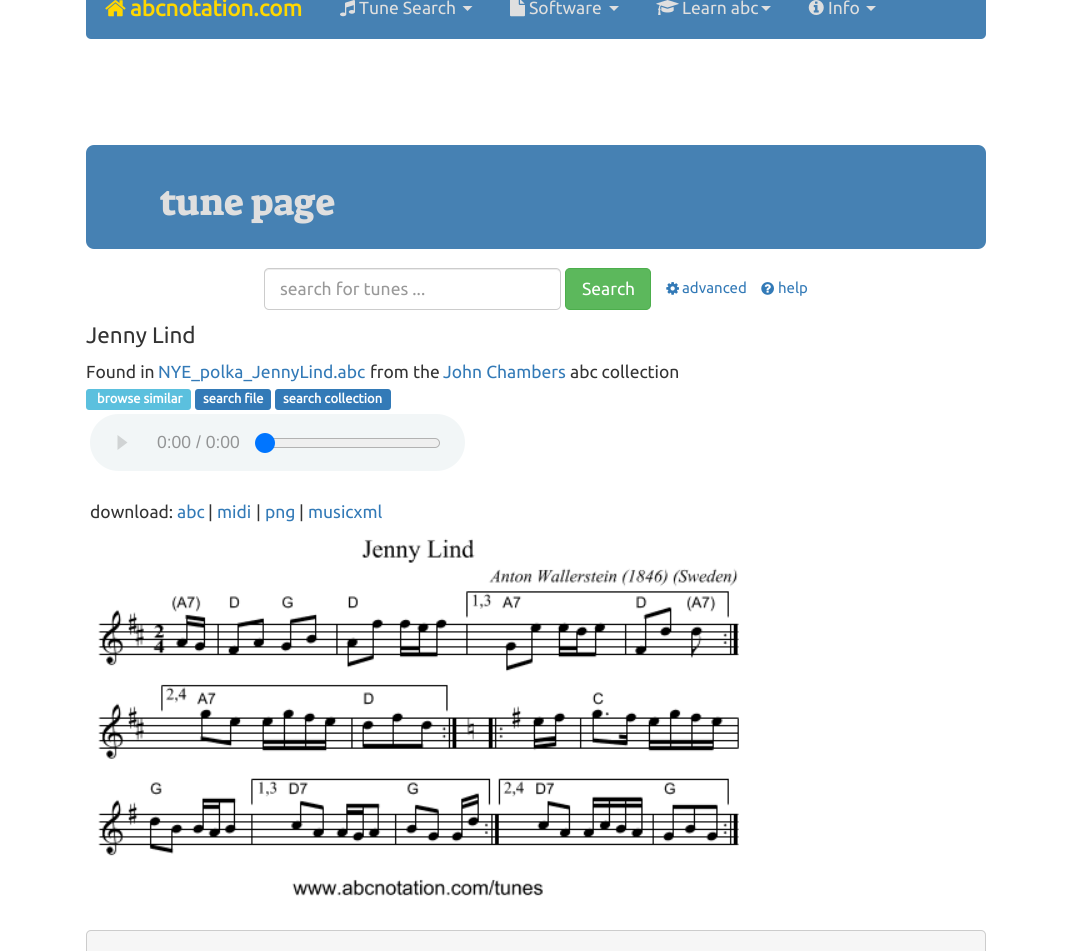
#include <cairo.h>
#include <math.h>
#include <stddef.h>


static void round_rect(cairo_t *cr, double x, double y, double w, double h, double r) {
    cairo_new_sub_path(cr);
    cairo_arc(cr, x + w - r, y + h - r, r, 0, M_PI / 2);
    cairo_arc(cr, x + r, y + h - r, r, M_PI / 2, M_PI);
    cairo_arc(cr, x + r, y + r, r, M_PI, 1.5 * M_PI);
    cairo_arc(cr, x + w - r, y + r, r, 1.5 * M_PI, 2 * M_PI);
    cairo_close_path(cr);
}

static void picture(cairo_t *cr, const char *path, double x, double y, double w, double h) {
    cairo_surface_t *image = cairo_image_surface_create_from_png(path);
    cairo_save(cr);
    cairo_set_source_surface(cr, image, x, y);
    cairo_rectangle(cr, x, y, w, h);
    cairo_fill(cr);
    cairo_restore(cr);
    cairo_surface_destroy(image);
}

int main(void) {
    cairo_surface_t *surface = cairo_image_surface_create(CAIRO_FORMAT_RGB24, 1071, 951);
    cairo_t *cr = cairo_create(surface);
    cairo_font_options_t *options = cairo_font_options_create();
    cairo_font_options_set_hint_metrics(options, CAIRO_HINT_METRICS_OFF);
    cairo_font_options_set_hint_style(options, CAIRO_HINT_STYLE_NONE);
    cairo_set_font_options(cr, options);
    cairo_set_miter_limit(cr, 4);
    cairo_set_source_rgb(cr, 1, 1, 1);
    cairo_paint(cr);
    cairo_set_source_rgb(cr, 0.275, 0.506, 0.702);
    round_rect(cr, 86, -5, 900, 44, 5);
    cairo_fill(cr);
    picture(cr, "img1.png", 105, 0, 21, 17);
    cairo_select_font_face(cr, "Ubuntu", CAIRO_FONT_SLANT_NORMAL, CAIRO_FONT_WEIGHT_BOLD);
    cairo_set_font_size(cr, 22.5);
    cairo_set_source_rgb(cr, 1, 0.843, 0);
    cairo_move_to(cr, 130, 16);
    cairo_show_text(cr, "abcnotation.com");
    picture(cr, "img2.png", 340, 0, 15, 17);
    cairo_select_font_face(cr, "Ubuntu", CAIRO_FONT_SLANT_NORMAL, CAIRO_FONT_WEIGHT_NORMAL);
    cairo_set_font_size(cr, 17.5);
    cairo_set_source_rgb(cr, 0.875, 0.875, 0.875);
    cairo_move_to(cr, 359, 14);
    cairo_show_text(cr, "Tune Search");
    cairo_new_path(cr);
    cairo_move_to(cr, 462.5, 6);
    cairo_line_to(cr, 472.5, 6);
    cairo_line_to(cr, 467.5, 11);
    cairo_close_path(cr);
    cairo_fill(cr);
    picture(cr, "img3.png", 510, 0, 15, 17);
    cairo_move_to(cr, 529, 14);
    cairo_show_text(cr, "Software");
    cairo_new_path(cr);
    cairo_move_to(cr, 609, 6);
    cairo_line_to(cr, 619, 6);
    cairo_line_to(cr, 614, 11);
    cairo_close_path(cr);
    cairo_fill(cr);
    picture(cr, "img4.png", 656, 0, 23, 15);
    cairo_move_to(cr, 682, 14);
    cairo_show_text(cr, "Learn abc");
    cairo_new_path(cr);
    cairo_move_to(cr, 761, 6);
    cairo_line_to(cr, 771, 6);
    cairo_line_to(cr, 766, 11);
    cairo_close_path(cr);
    cairo_fill(cr);
    picture(cr, "img5.png", 808, 0, 16, 15);
    cairo_move_to(cr, 828, 14);
    cairo_show_text(cr, "Info");
    cairo_new_path(cr);
    cairo_move_to(cr, 866, 6);
    cairo_line_to(cr, 876, 6);
    cairo_line_to(cr, 871, 11);
    cairo_close_path(cr);
    cairo_fill(cr);
    cairo_set_source_rgb(cr, 0.275, 0.506, 0.702);
    round_rect(cr, 86, 145, 900, 104, 8);
    cairo_fill(cr);
    cairo_select_font_face(cr, "Suez One", CAIRO_FONT_SLANT_NORMAL, CAIRO_FONT_WEIGHT_NORMAL);
    cairo_set_font_size(cr, 37.5);
    cairo_set_source_rgb(cr, 0.875, 0.875, 0.875);
    cairo_move_to(cr, 161, 215);
    cairo_show_text(cr, "tune page");
    cairo_set_source_rgb(cr, 0.925, 0.925, 0.925);
    cairo_new_path(cr);
    cairo_move_to(cr, 269, 270);
    cairo_line_to(cr, 556, 270);
    cairo_curve_to(cr, 558, 270, 560, 272, 560, 274);
    cairo_curve_to(cr, 560, 271, 559, 269, 556, 269);
    cairo_line_to(cr, 269, 269);
    cairo_curve_to(cr, 266, 269, 265, 271, 265, 274);
    cairo_curve_to(cr, 265, 272, 267, 270, 269, 270);
    cairo_close_path(cr);
    cairo_fill(cr);
    round_rect(cr, 264.5, 268.5, 296, 41, 4.5);
    cairo_set_source_rgb(cr, 0.8, 0.8, 0.8);
    cairo_set_line_width(cr, 1);
    cairo_stroke(cr);
    cairo_select_font_face(cr, "Ubuntu", CAIRO_FONT_SLANT_NORMAL, CAIRO_FONT_WEIGHT_NORMAL);
    cairo_set_font_size(cr, 17.5);
    cairo_set_source_rgb(cr, 0.6, 0.6, 0.6);
    cairo_move_to(cr, 280, 295);
    cairo_show_text(cr, "search for tunes ...");
    cairo_set_source_rgb(cr, 0.361, 0.722, 0.361);
    round_rect(cr, 565.5, 268.5, 85, 41, 4.5);
    cairo_fill_preserve(cr);
    cairo_set_source_rgb(cr, 0.298, 0.682, 0.298);
    cairo_stroke(cr);
    cairo_set_source_rgb(cr, 1, 1, 1);
    cairo_move_to(cr, 582, 295);
    cairo_show_text(cr, "Search");
    picture(cr, "img6.png", 666, 282, 13, 13);
    cairo_set_font_size(cr, 15);
    cairo_set_source_rgb(cr, 0.2, 0.478, 0.718);
    cairo_move_to(cr, 682, 293);
    cairo_show_text(cr, "advanced");
    picture(cr, "img7.png", 761, 282, 13, 13);
    cairo_move_to(cr, 778, 293);
    cairo_show_text(cr, "help");
    cairo_set_font_size(cr, 22.5);
    cairo_set_source_rgb(cr, 0.2, 0.2, 0.2);
    cairo_move_to(cr, 86, 343);
    cairo_show_text(cr, "Jenny Lind");
    cairo_set_font_size(cr, 17.5);
    cairo_move_to(cr, 86, 378);
    cairo_show_text(cr, "Found in");
    cairo_set_source_rgb(cr, 0.2, 0.478, 0.718);
    cairo_move_to(cr, 158, 378);
    cairo_show_text(cr, "NYE_polka_JennyLind.abc");
    cairo_set_source_rgb(cr, 0.2, 0.2, 0.2);
    cairo_move_to(cr, 370, 378);
    cairo_show_text(cr, "from the");
    cairo_set_source_rgb(cr, 0.2, 0.478, 0.718);
    cairo_move_to(cr, 443, 378);
    cairo_show_text(cr, "John Chambers");
    cairo_set_source_rgb(cr, 0.2, 0.2, 0.2);
    cairo_move_to(cr, 570, 378);
    cairo_show_text(cr, "abc collection");
    cairo_set_source_rgb(cr, 0.357, 0.753, 0.871);
    round_rect(cr, 86, 389, 105, 21, 3);
    cairo_fill(cr);
    cairo_select_font_face(cr, "Ubuntu", CAIRO_FONT_SLANT_NORMAL, CAIRO_FONT_WEIGHT_BOLD);
    cairo_set_font_size(cr, 13);
    cairo_set_source_rgb(cr, 1, 1, 1);
    cairo_move_to(cr, 97, 403);
    cairo_show_text(cr, "browse similar");
    cairo_set_source_rgb(cr, 0.2, 0.478, 0.718);
    round_rect(cr, 195, 389, 76, 21, 3);
    cairo_fill(cr);
    cairo_set_source_rgb(cr, 1, 1, 1);
    cairo_move_to(cr, 203, 403);
    cairo_show_text(cr, "search file");
    cairo_set_source_rgb(cr, 0.2, 0.478, 0.718);
    round_rect(cr, 275, 389, 116, 21, 3);
    cairo_fill(cr);
    cairo_set_source_rgb(cr, 1, 1, 1);
    cairo_move_to(cr, 283, 403);
    cairo_show_text(cr, "search collection");
    cairo_set_source_rgb(cr, 0.949, 0.961, 0.965);
    round_rect(cr, 90, 414, 375, 57, 28.5);
    cairo_fill(cr);
    cairo_set_source_rgb(cr, 0.816, 0.827, 0.831);
    cairo_new_path(cr);
    cairo_move_to(cr, 127.5, 442.5);
    cairo_line_to(cr, 117.5, 450);
    cairo_line_to(cr, 117.5, 435);
    cairo_close_path(cr);
    cairo_fill(cr);
    cairo_select_font_face(cr, "Liberation Sans", CAIRO_FONT_SLANT_NORMAL, CAIRO_FONT_WEIGHT_NORMAL);
    cairo_set_font_size(cr, 17.5);
    cairo_set_source_rgb(cr, 0.576, 0.58, 0.584);
    cairo_move_to(cr, 157, 448);
    cairo_show_text(cr, "0:00 / 0:00");
    cairo_set_source_rgb(cr, 0.937, 0.937, 0.937);
    round_rect(cr, 256.5, 438.5, 183, 9, 4.5);
    cairo_fill_preserve(cr);
    cairo_set_source_rgb(cr, 0.698, 0.698, 0.698);
    cairo_stroke(cr);
    cairo_set_source_rgb(cr, 0, 0.459, 1);
    cairo_arc(cr, 265, 443, 10, 0, 2 * M_PI);
    cairo_fill(cr);
    cairo_select_font_face(cr, "Ubuntu", CAIRO_FONT_SLANT_NORMAL, CAIRO_FONT_WEIGHT_NORMAL);
    cairo_set_source_rgb(cr, 0.2, 0.2, 0.2);
    cairo_move_to(cr, 90, 518);
    cairo_show_text(cr, "download:");
    cairo_set_source_rgb(cr, 0.2, 0.478, 0.718);
    cairo_move_to(cr, 177, 518);
    cairo_show_text(cr, "abc");
    cairo_set_source_rgb(cr, 0.2, 0.2, 0.2);
    cairo_move_to(cr, 208, 518);
    cairo_show_text(cr, "|");
    cairo_set_source_rgb(cr, 0.2, 0.478, 0.718);
    cairo_move_to(cr, 217, 518);
    cairo_show_text(cr, "midi");
    cairo_set_source_rgb(cr, 0.2, 0.2, 0.2);
    cairo_move_to(cr, 256, 518);
    cairo_show_text(cr, "|");
    cairo_set_source_rgb(cr, 0.2, 0.478, 0.718);
    cairo_move_to(cr, 265, 518);
    cairo_show_text(cr, "png");
    cairo_set_source_rgb(cr, 0.2, 0.2, 0.2);
    cairo_move_to(cr, 299, 518);
    cairo_show_text(cr, "|");
    cairo_set_source_rgb(cr, 0.2, 0.478, 0.718);
    cairo_move_to(cr, 308, 518);
    cairo_show_text(cr, "musicxml");
    picture(cr, "img8.png", 98, 538, 641, 358);
    cairo_set_source_rgb(cr, 0.961, 0.961, 0.961);
    round_rect(cr, 86.5, 930.5, 899, 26, 4.5);
    cairo_fill_preserve(cr);
    cairo_set_source_rgb(cr, 0.8, 0.8, 0.8);
    cairo_stroke(cr);
    cairo_surface_write_to_png(surface, "page.png");
    cairo_font_options_destroy(options);
    cairo_destroy(cr);
    cairo_surface_destroy(surface);
    return 0;
}
